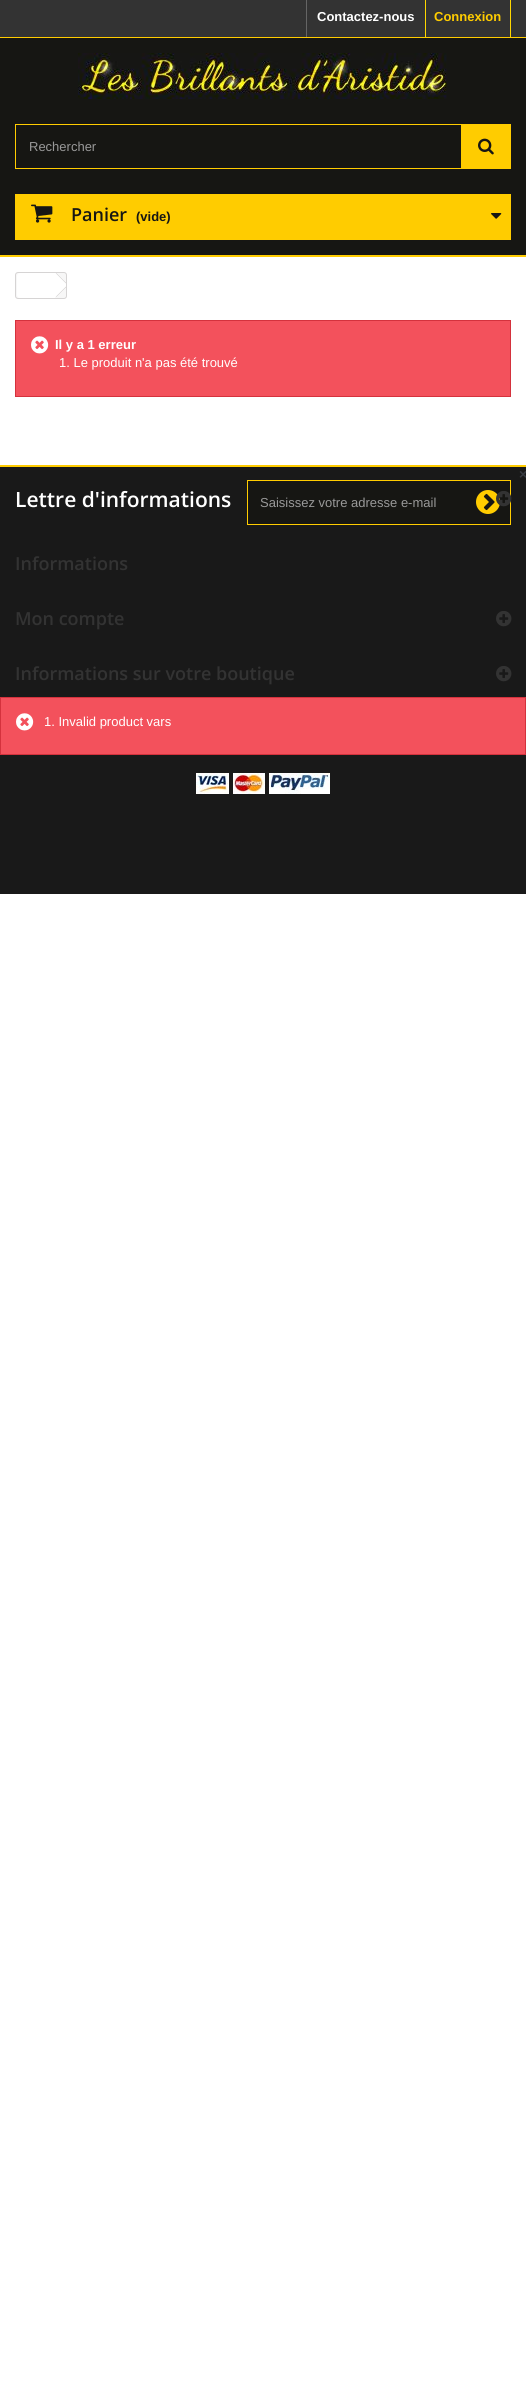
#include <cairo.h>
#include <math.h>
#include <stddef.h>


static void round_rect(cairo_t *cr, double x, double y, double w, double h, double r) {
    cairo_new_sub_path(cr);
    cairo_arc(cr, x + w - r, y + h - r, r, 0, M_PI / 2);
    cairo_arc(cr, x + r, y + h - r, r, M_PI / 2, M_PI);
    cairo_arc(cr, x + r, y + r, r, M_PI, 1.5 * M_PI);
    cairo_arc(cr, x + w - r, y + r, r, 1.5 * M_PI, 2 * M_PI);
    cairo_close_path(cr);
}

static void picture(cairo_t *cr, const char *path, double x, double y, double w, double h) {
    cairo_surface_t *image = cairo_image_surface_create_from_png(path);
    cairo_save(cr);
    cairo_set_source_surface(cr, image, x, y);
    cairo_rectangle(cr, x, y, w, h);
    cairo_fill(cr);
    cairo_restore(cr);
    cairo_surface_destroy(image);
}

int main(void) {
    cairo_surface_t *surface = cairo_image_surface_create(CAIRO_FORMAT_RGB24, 526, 2392);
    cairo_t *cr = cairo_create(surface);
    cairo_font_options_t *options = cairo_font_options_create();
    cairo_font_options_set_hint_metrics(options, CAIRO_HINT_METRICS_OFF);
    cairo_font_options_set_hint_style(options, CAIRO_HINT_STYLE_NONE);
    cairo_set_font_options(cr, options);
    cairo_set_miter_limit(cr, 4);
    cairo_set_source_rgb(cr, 1, 1, 1);
    cairo_paint(cr);
    cairo_set_source_rgb(cr, 0.086, 0.086, 0.078);
    cairo_rectangle(cr, 0, 38, 526, 217);
    cairo_fill(cr);
    cairo_set_source_rgb(cr, 0.2, 0.2, 0.2);
    cairo_rectangle(cr, 0, 0, 526, 37);
    cairo_fill(cr);
    cairo_set_source_rgb(cr, 1, 0.8, 0);
    cairo_rectangle(cr, 0, 37, 526, 1);
    cairo_fill(cr);
    cairo_set_source_rgb(cr, 0.396, 0.396, 0.396);
    cairo_rectangle(cr, 306, 0, 1, 37);
    cairo_fill(cr);
    cairo_select_font_face(cr, "Liberation Sans", CAIRO_FONT_SLANT_NORMAL, CAIRO_FONT_WEIGHT_BOLD);
    cairo_set_font_size(cr, 13);
    cairo_set_source_rgb(cr, 1, 1, 1);
    cairo_move_to(cr, 317, 21);
    cairo_show_text(cr, "Contactez-nous");
    cairo_set_source_rgb(cr, 1, 0.843, 0);
    cairo_rectangle(cr, 510, 0, 1, 37);
    cairo_fill(cr);
    cairo_rectangle(cr, 425, 0, 1, 37);
    cairo_fill(cr);
    cairo_set_source_rgb(cr, 1, 0.8, 0);
    cairo_move_to(cr, 434, 21);
    cairo_show_text(cr, "Connexion");
    picture(cr, "img1.png", 78, 53, 369, 46);
    cairo_rectangle(cr, 15.5, 124.5, 495, 44);
    cairo_set_line_width(cr, 1);
    cairo_stroke(cr);
    cairo_select_font_face(cr, "Liberation Sans", CAIRO_FONT_SLANT_NORMAL, CAIRO_FONT_WEIGHT_NORMAL);
    cairo_set_source_rgb(cr, 0.6, 0.6, 0.6);
    cairo_move_to(cr, 29, 151);
    cairo_show_text(cr, "Rechercher");
    cairo_set_source_rgb(cr, 1, 0.8, 0);
    cairo_rectangle(cr, 461, 125, 49, 43);
    cairo_fill(cr);
    picture(cr, "img2.png", 478, 138, 16, 17);
    cairo_rectangle(cr, 15, 194, 496, 46);
    cairo_fill(cr);
    picture(cr, "img3.png", 31, 204, 22, 19);
    cairo_select_font_face(cr, "Open Sans SemiBold", CAIRO_FONT_SLANT_NORMAL, CAIRO_FONT_WEIGHT_NORMAL);
    cairo_set_font_size(cr, 18);
    cairo_set_source_rgb(cr, 0.086, 0.086, 0.078);
    cairo_move_to(cr, 71, 221);
    cairo_show_text(cr, "Panier");
    cairo_select_font_face(cr, "Liberation Sans", CAIRO_FONT_SLANT_NORMAL, CAIRO_FONT_WEIGHT_BOLD);
    cairo_set_font_size(cr, 13);
    cairo_move_to(cr, 136, 221);
    cairo_show_text(cr, "(vide)");
    picture(cr, "img4.png", 491, 213, 11, 6);
    cairo_set_source_rgb(cr, 1, 0.8, 0);
    cairo_rectangle(cr, 0, 255, 526, 2);
    cairo_fill(cr);
    cairo_rectangle(cr, 0, 465, 526, 2);
    cairo_fill(cr);
    cairo_set_source_rgb(cr, 0.965, 0.965, 0.965);
    round_rect(cr, 15.5, 272.5, 51, 26, 2.5);
    cairo_fill_preserve(cr);
    cairo_set_source_rgb(cr, 0.839, 0.831, 0.831);
    cairo_stroke(cr);
    cairo_set_source_rgb(cr, 1, 1, 1);
    cairo_new_path(cr);
    cairo_move_to(cr, 20, 273);
    cairo_line_to(cr, 55, 273);
    cairo_line_to(cr, 55, 298);
    cairo_line_to(cr, 20, 298);
    cairo_curve_to(cr, 18.5, 298, 17, 296.5, 17, 295);
    cairo_line_to(cr, 17, 276);
    cairo_curve_to(cr, 17, 274.5, 18.5, 273, 20, 273);
    cairo_close_path(cr);
    cairo_fill(cr);
    cairo_new_path(cr);
    cairo_move_to(cr, 57.5, 273.5);
    cairo_line_to(cr, 66, 282);
    cairo_line_to(cr, 66, 288);
    cairo_line_to(cr, 57.5, 296.5);
    cairo_curve_to(cr, 56.5, 297, 55.5, 297, 54.5, 296.5);
    cairo_line_to(cr, 44.5, 286.5);
    cairo_curve_to(cr, 44, 285.5, 44, 284.5, 44.5, 283.5);
    cairo_line_to(cr, 54.5, 273.5);
    cairo_curve_to(cr, 55.5, 273, 56.5, 273, 57.5, 273.5);
    cairo_close_path(cr);
    cairo_fill(cr);
    cairo_set_source_rgb(cr, 0.839, 0.831, 0.831);
    cairo_new_path(cr);
    cairo_move_to(cr, 56.5, 273);
    cairo_line_to(cr, 66, 282.5);
    cairo_line_to(cr, 66, 283.5);
    cairo_line_to(cr, 56, 273.5);
    cairo_close_path(cr);
    cairo_move_to(cr, 66, 286.5);
    cairo_line_to(cr, 66, 287.5);
    cairo_line_to(cr, 56.5, 297);
    cairo_line_to(cr, 56, 296.5);
    cairo_close_path(cr);
    cairo_fill(cr);
    cairo_set_source_rgb(cr, 0.953, 0.318, 0.361);
    cairo_rectangle(cr, 15.5, 320.5, 495, 76);
    cairo_fill_preserve(cr);
    cairo_set_source_rgb(cr, 0.831, 0.196, 0.239);
    cairo_stroke(cr);
    picture(cr, "img5.png", 31, 336, 18, 18);
    cairo_set_source_rgb(cr, 1, 1, 1);
    cairo_move_to(cr, 55, 349);
    cairo_show_text(cr, "Il y a 1 erreur");
    cairo_select_font_face(cr, "Liberation Sans", CAIRO_FONT_SLANT_NORMAL, CAIRO_FONT_WEIGHT_NORMAL);
    cairo_move_to(cr, 59, 367);
    cairo_show_text(cr, "1. Le produit n'a pas été trouvé");
    cairo_set_source_rgb(cr, 0.098, 0.098, 0.098);
    cairo_rectangle(cr, 0, 467, 526, 427);
    cairo_fill(cr);
    cairo_set_source_rgb(cr, 0.953, 0.318, 0.361);
    cairo_rectangle(cr, 0.5, 697.5, 525, 57);
    cairo_fill_preserve(cr);
    cairo_set_source_rgb(cr, 0.831, 0.196, 0.239);
    cairo_stroke(cr);
    cairo_select_font_face(cr, "Liberation Sans", CAIRO_FONT_SLANT_NORMAL, CAIRO_FONT_WEIGHT_BOLD);
    cairo_set_font_size(cr, 14);
    cairo_set_source_rgb(cr, 0.212, 0.227, 0.255);
    cairo_move_to(cr, 519, 479);
    cairo_show_text(cr, "×");
    picture(cr, "img5.png", 16, 713, 18, 18);
    cairo_select_font_face(cr, "Liberation Sans", CAIRO_FONT_SLANT_NORMAL, CAIRO_FONT_WEIGHT_NORMAL);
    cairo_set_font_size(cr, 13);
    cairo_set_source_rgb(cr, 1, 1, 1);
    cairo_move_to(cr, 44, 726);
    cairo_show_text(cr, "1. Invalid product vars");
    cairo_select_font_face(cr, "Open Sans SemiBold", CAIRO_FONT_SLANT_NORMAL, CAIRO_FONT_WEIGHT_NORMAL);
    cairo_set_font_size(cr, 21);
    cairo_move_to(cr, 15, 507);
    cairo_show_text(cr, "Lettre d'informations");
    cairo_set_source_rgb(cr, 0.086, 0.086, 0.078);
    cairo_rectangle(cr, 247.5, 480.5, 263, 44);
    cairo_fill_preserve(cr);
    cairo_set_source_rgb(cr, 1, 0.8, 0);
    cairo_stroke(cr);
    cairo_select_font_face(cr, "Liberation Sans", CAIRO_FONT_SLANT_NORMAL, CAIRO_FONT_WEIGHT_NORMAL);
    cairo_set_font_size(cr, 13);
    cairo_set_source_rgb(cr, 0.6, 0.6, 0.6);
    cairo_move_to(cr, 260, 507);
    cairo_show_text(cr, "Saisissez votre adresse e-mail");
    picture(cr, "img6.png", 476, 490, 24, 24);
    picture(cr, "img7.png", 496, 491, 16, 16);
    cairo_select_font_face(cr, "Open Sans SemiBold", CAIRO_FONT_SLANT_NORMAL, CAIRO_FONT_WEIGHT_NORMAL);
    cairo_set_font_size(cr, 18);
    cairo_set_source_rgb(cr, 0.2, 0.2, 0.2);
    cairo_move_to(cr, 15, 570);
    cairo_show_text(cr, "Informations");
    cairo_move_to(cr, 15, 625);
    cairo_show_text(cr, "Mon compte");
    picture(cr, "img8.png", 496, 611, 16, 16);
    cairo_move_to(cr, 15, 680);
    cairo_show_text(cr, "Informations sur votre boutique");
    picture(cr, "img8.png", 496, 666, 16, 16);
    picture(cr, "img9.png", 196, 773, 33, 21);
    picture(cr, "img10.png", 233, 773, 32, 21);
    picture(cr, "img11.png", 269, 773, 61, 21);
    cairo_surface_write_to_png(surface, "page.png");
    cairo_font_options_destroy(options);
    cairo_destroy(cr);
    cairo_surface_destroy(surface);
    return 0;
}
